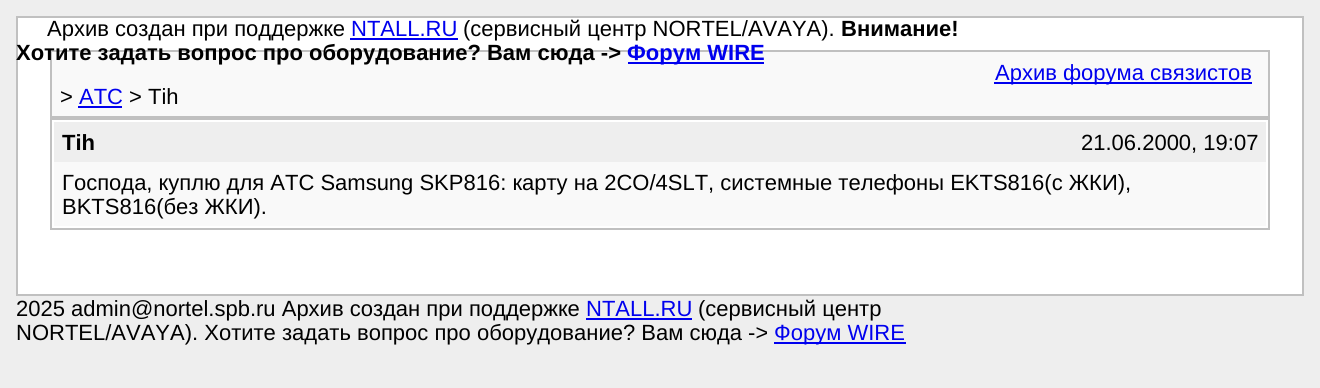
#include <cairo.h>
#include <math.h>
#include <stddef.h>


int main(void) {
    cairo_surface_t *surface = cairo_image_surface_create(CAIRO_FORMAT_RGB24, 1320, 388);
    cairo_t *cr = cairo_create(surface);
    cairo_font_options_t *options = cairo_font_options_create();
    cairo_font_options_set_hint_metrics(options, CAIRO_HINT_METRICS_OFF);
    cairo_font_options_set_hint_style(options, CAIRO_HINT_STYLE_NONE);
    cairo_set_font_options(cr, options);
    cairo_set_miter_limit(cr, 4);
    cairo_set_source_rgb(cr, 0.933, 0.933, 0.933);
    cairo_paint(cr);
    cairo_set_source_rgb(cr, 1, 1, 1);
    cairo_rectangle(cr, 17, 17, 1286, 278);
    cairo_fill_preserve(cr);
    cairo_set_source_rgb(cr, 0.753, 0.753, 0.753);
    cairo_stroke(cr);
    cairo_select_font_face(cr, "Liberation Sans", CAIRO_FONT_SLANT_NORMAL, CAIRO_FONT_WEIGHT_NORMAL);
    cairo_set_font_size(cr, 22);
    cairo_set_source_rgb(cr, 0, 0, 0);
    cairo_move_to(cr, 47, 36);
    cairo_show_text(cr, "Архив создан при поддержке");
    cairo_set_source_rgb(cr, 0, 0, 0.933);
    cairo_move_to(cr, 351, 36);
    cairo_show_text(cr, "NTALL.RU");
    cairo_rectangle(cr, 350, 38, 108, 2);
    cairo_fill(cr);
    cairo_set_source_rgb(cr, 0, 0, 0);
    cairo_move_to(cr, 463, 36);
    cairo_show_text(cr, "(сервисный центр NORTEL/AVAYA).");
    cairo_select_font_face(cr, "Liberation Sans", CAIRO_FONT_SLANT_NORMAL, CAIRO_FONT_WEIGHT_BOLD);
    cairo_move_to(cr, 841, 36);
    cairo_show_text(cr, "Внимание!");
    cairo_set_source_rgb(cr, 0.976, 0.976, 0.976);
    cairo_rectangle(cr, 51, 51, 1218, 66);
    cairo_fill_preserve(cr);
    cairo_set_source_rgb(cr, 0.753, 0.753, 0.753);
    cairo_stroke(cr);
    cairo_set_source_rgb(cr, 0, 0, 0);
    cairo_move_to(cr, 16, 60);
    cairo_show_text(cr, "Хотите задать вопрос про оборудование? Вам сюда ->");
    cairo_set_source_rgb(cr, 0, 0, 0.933);
    cairo_rectangle(cr, 628, 62, 136, 2);
    cairo_fill(cr);
    cairo_move_to(cr, 627, 60);
    cairo_show_text(cr, "Форум WIRE");
    cairo_rectangle(cr, 994, 82, 258, 2);
    cairo_fill(cr);
    cairo_select_font_face(cr, "Liberation Sans", CAIRO_FONT_SLANT_NORMAL, CAIRO_FONT_WEIGHT_NORMAL);
    cairo_move_to(cr, 995, 80);
    cairo_show_text(cr, "Архив форума связистов");
    cairo_set_source_rgb(cr, 0, 0, 0);
    cairo_move_to(cr, 60, 104);
    cairo_show_text(cr, ">");
    cairo_set_source_rgb(cr, 0, 0, 0.933);
    cairo_move_to(cr, 79, 104);
    cairo_show_text(cr, "АТС");
    cairo_rectangle(cr, 78, 106, 44, 2);
    cairo_fill(cr);
    cairo_set_source_rgb(cr, 0, 0, 0);
    cairo_move_to(cr, 129, 104);
    cairo_show_text(cr, "> Tih");
    cairo_rectangle(cr, 51, 119, 1218, 110);
    cairo_set_source_rgb(cr, 0.753, 0.753, 0.753);
    cairo_stroke(cr);
    cairo_set_source_rgb(cr, 0.933, 0.933, 0.933);
    cairo_rectangle(cr, 54, 122, 1212, 40);
    cairo_fill(cr);
    cairo_select_font_face(cr, "Liberation Sans", CAIRO_FONT_SLANT_NORMAL, CAIRO_FONT_WEIGHT_BOLD);
    cairo_set_source_rgb(cr, 0, 0, 0);
    cairo_move_to(cr, 62, 150);
    cairo_show_text(cr, "Tih");
    cairo_select_font_face(cr, "Liberation Sans", CAIRO_FONT_SLANT_NORMAL, CAIRO_FONT_WEIGHT_NORMAL);
    cairo_move_to(cr, 1081, 150);
    cairo_show_text(cr, "21.06.2000, 19:07");
    cairo_set_source_rgb(cr, 0.976, 0.976, 0.976);
    cairo_rectangle(cr, 54, 162, 1212, 64);
    cairo_fill(cr);
    cairo_set_source_rgb(cr, 0, 0, 0);
    cairo_move_to(cr, 62, 190);
    cairo_show_text(cr, "Господа, куплю для АТС Samsung SKP816: карту на 2CO/4SLT, системные телефоны EKTS816(с ЖКИ),");
    cairo_move_to(cr, 62, 214);
    cairo_show_text(cr, "BKTS816(без ЖКИ).");
    cairo_move_to(cr, 16, 316);
    cairo_show_text(cr, "2025 admin@nortel.spb.ru Архив создан при поддержке");
    cairo_set_source_rgb(cr, 0, 0, 0.933);
    cairo_move_to(cr, 586, 316);
    cairo_show_text(cr, "NTALL.RU");
    cairo_rectangle(cr, 586, 318, 106, 2);
    cairo_fill(cr);
    cairo_set_source_rgb(cr, 0, 0, 0);
    cairo_move_to(cr, 698, 316);
    cairo_show_text(cr, "(сервисный центр");
    cairo_move_to(cr, 16, 340);
    cairo_show_text(cr, "NORTEL/AVAYA). Хотите задать вопрос про оборудование? Вам сюда ->");
    cairo_set_source_rgb(cr, 0, 0, 0.933);
    cairo_rectangle(cr, 774, 342, 132, 2);
    cairo_fill(cr);
    cairo_move_to(cr, 774, 340);
    cairo_show_text(cr, "Форум WIRE");
    cairo_surface_write_to_png(surface, "page.png");
    cairo_font_options_destroy(options);
    cairo_destroy(cr);
    cairo_surface_destroy(surface);
    return 0;
}
